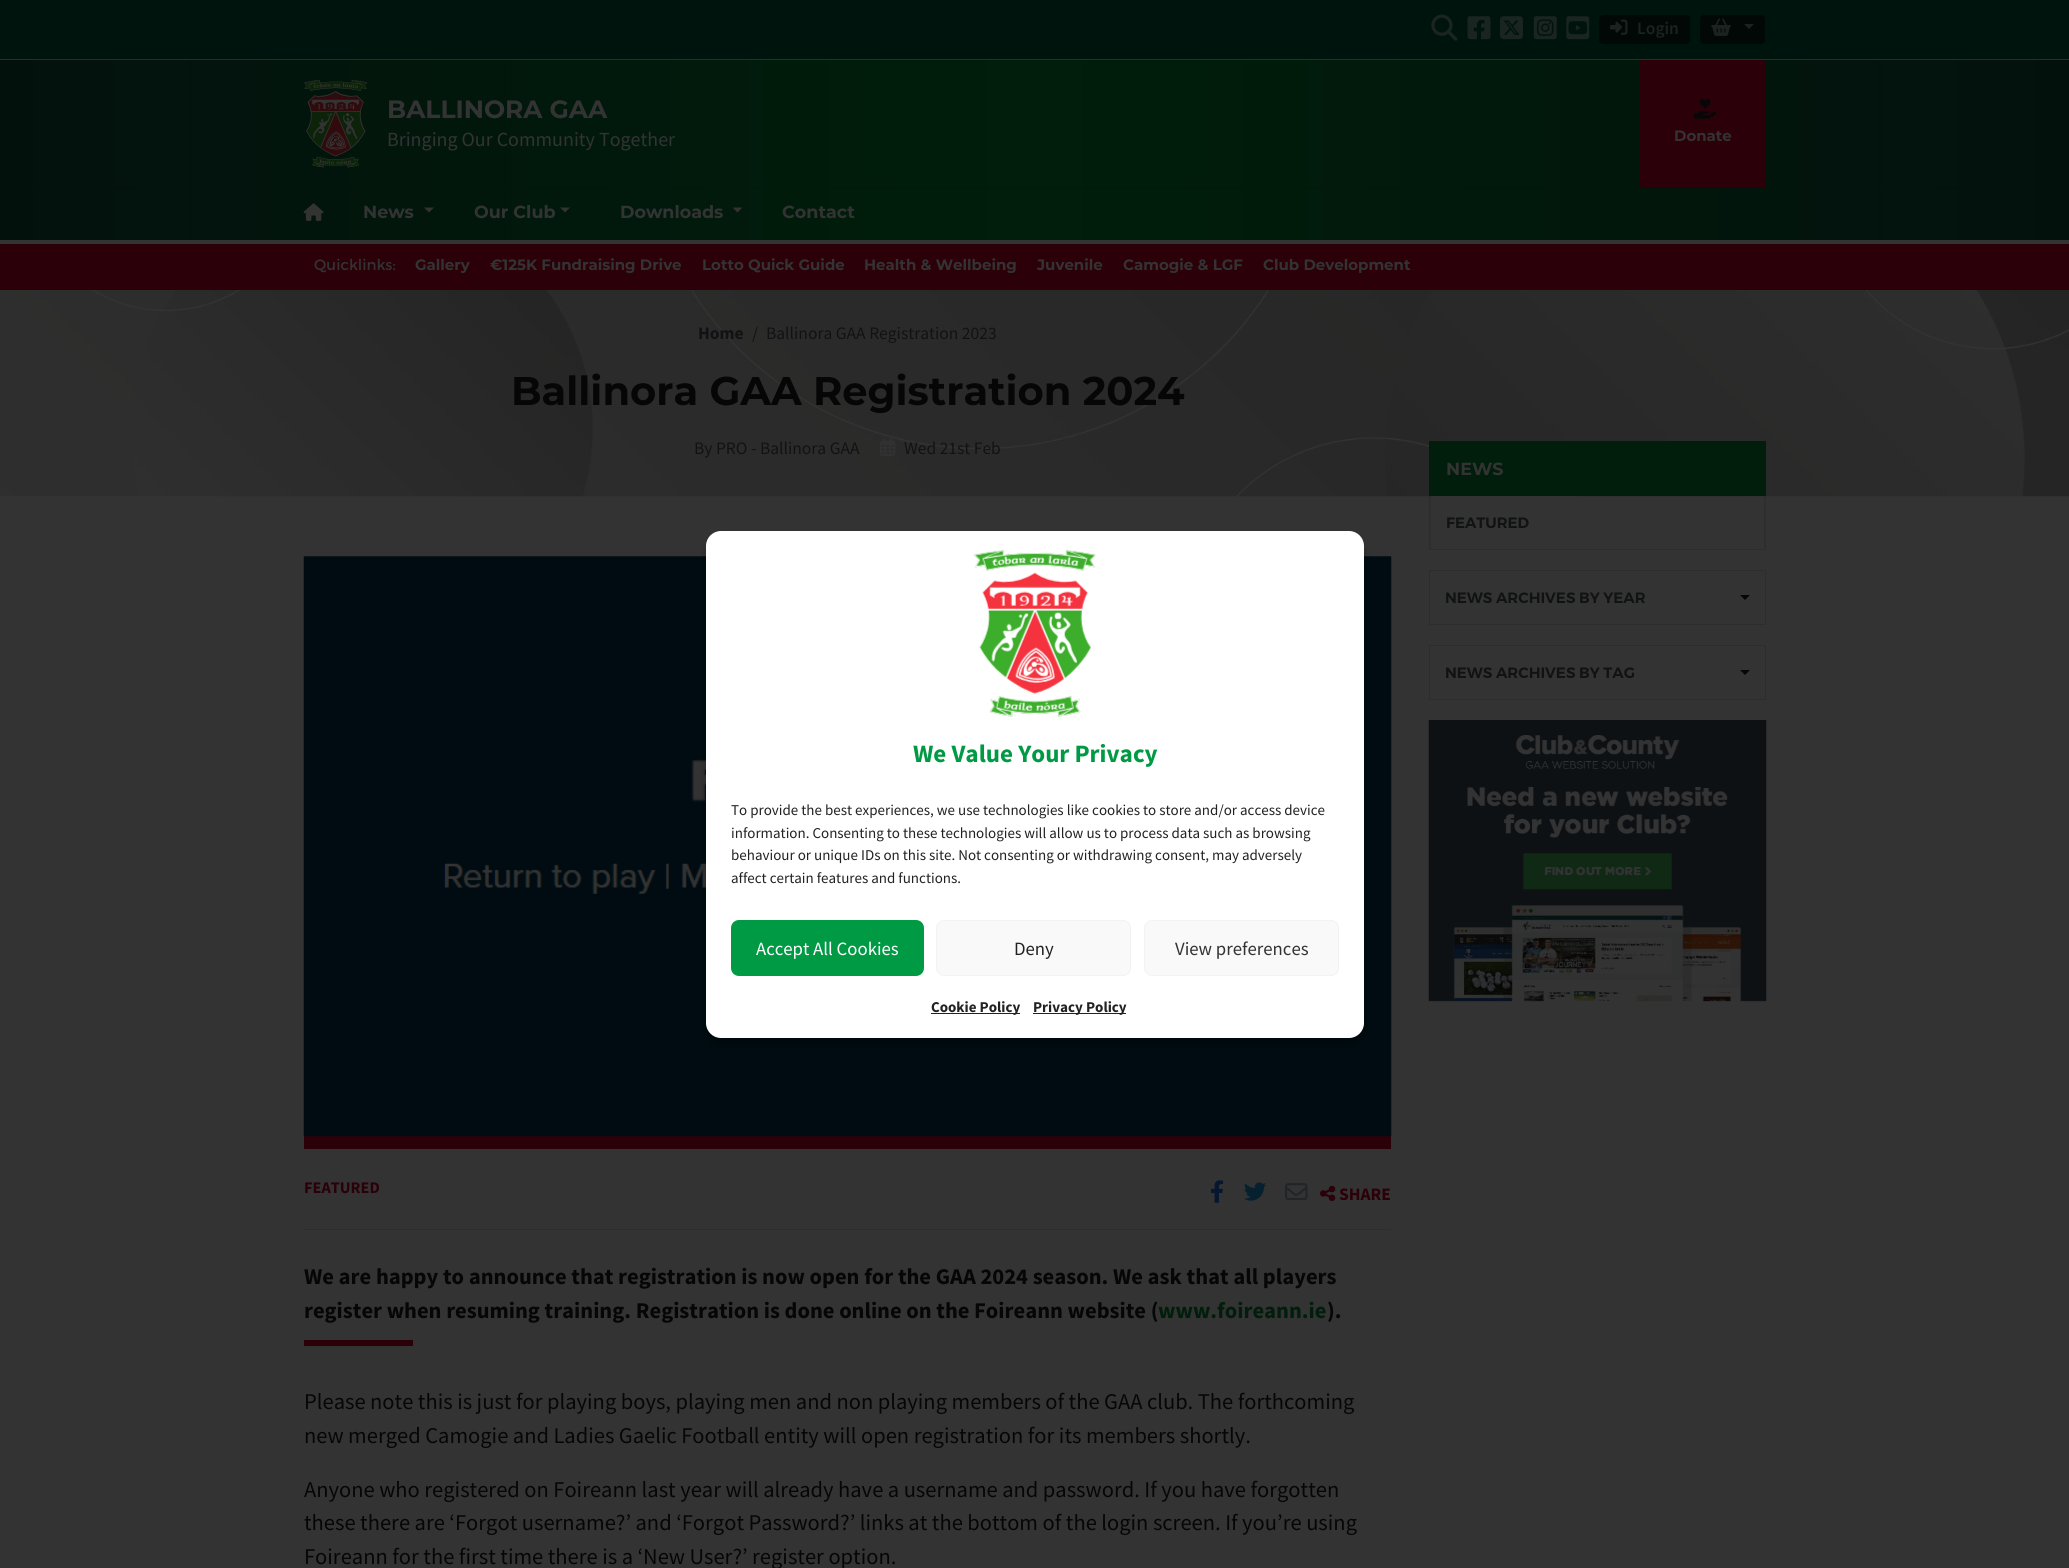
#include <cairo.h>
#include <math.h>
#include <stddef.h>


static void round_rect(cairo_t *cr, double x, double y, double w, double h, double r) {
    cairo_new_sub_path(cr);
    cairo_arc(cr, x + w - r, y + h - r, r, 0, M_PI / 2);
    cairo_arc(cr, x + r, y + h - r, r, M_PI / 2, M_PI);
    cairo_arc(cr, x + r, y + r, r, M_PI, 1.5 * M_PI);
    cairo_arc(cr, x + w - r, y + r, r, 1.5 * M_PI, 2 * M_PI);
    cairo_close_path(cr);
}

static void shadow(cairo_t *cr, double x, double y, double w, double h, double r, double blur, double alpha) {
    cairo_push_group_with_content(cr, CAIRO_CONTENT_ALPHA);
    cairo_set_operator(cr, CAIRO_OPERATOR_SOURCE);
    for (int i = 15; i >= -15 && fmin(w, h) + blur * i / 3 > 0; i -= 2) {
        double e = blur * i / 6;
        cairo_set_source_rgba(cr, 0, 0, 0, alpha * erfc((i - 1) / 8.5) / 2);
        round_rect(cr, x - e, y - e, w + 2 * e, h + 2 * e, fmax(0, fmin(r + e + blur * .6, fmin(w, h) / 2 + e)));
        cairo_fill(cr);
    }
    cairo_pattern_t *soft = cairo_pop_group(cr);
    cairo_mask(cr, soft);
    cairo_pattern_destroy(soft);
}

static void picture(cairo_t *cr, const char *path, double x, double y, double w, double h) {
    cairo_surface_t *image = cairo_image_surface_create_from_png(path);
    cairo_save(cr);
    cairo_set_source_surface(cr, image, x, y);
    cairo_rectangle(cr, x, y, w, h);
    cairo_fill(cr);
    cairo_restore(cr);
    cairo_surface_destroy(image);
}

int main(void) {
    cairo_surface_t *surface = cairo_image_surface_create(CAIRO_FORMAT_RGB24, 2069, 1568);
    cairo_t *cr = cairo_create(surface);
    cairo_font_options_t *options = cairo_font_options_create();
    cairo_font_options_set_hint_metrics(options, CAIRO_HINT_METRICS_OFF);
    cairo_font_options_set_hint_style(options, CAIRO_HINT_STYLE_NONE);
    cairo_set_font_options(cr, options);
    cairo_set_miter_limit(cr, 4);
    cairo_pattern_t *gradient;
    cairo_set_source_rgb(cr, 0.2, 0.2, 0.2);
    cairo_paint(cr);
    cairo_set_source_rgb(cr, 0, 0.082, 0.055);
    cairo_rectangle(cr, 0, 0, 2069, 59);
    cairo_fill(cr);
    picture(cr, "img1.png", 1431, 14, 27, 27);
    picture(cr, "img2.png", 1467, 16, 24, 24);
    picture(cr, "img3.png", 1500, 16, 23, 24);
    picture(cr, "img4.png", 1533, 16, 24, 24);
    picture(cr, "img5.png", 1566, 16, 24, 24);
    cairo_set_source_rgb(cr, 0.004, 0.035, 0.027);
    round_rect(cr, 1599.5, 15.5, 90, 28, 3.5);
    cairo_fill_preserve(cr);
    cairo_set_line_width(cr, 1);
    cairo_stroke(cr);
    picture(cr, "img6.png", 1610, 19, 18, 16);
    cairo_select_font_face(cr, "Source Sans Pro SemiBold", CAIRO_FONT_SLANT_NORMAL, CAIRO_FONT_WEIGHT_NORMAL);
    cairo_set_font_size(cr, 17.5);
    cairo_set_source_rgb(cr, 0.106, 0.133, 0.125);
    cairo_move_to(cr, 1637, 34);
    cairo_show_text(cr, "Login");
    cairo_set_source_rgb(cr, 0.004, 0.035, 0.027);
    round_rect(cr, 1700.5, 15.5, 64, 28, 3.5);
    cairo_fill_preserve(cr);
    cairo_stroke(cr);
    picture(cr, "img7.png", 1711, 18, 20, 18);
    cairo_set_source_rgb(cr, 0.106, 0.133, 0.125);
    cairo_new_path(cr);
    cairo_move_to(cr, 1744, 24);
    cairo_line_to(cr, 1754, 24);
    cairo_line_to(cr, 1749, 29);
    cairo_close_path(cr);
    cairo_fill(cr);
    gradient = cairo_pattern_create_linear(0, 124, 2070, 124);
    cairo_pattern_add_color_stop_rgba(gradient, 0, 0.012, 0.067, 0.051, 1);
    cairo_pattern_add_color_stop_rgba(gradient, 0.5, 0, 0.118, 0.043, 1);
    cairo_pattern_add_color_stop_rgba(gradient, 1, 0.012, 0.067, 0.051, 1);
    cairo_set_source(cr, gradient);
    cairo_pattern_destroy(gradient);
    cairo_rectangle(cr, 0, 60, 2069, 128);
    cairo_fill(cr);
    cairo_set_source_rgb(cr, 0.173, 0.176, 0.18);
    cairo_rectangle(cr, 0, 59, 2069, 1);
    cairo_fill(cr);
    picture(cr, "img8.png", 304, 80, 64, 88);
    cairo_select_font_face(cr, "Montserrat", CAIRO_FONT_SLANT_NORMAL, CAIRO_FONT_WEIGHT_BOLD);
    cairo_set_font_size(cr, 25);
    cairo_set_source_rgb(cr, 0.2, 0.2, 0.2);
    cairo_move_to(cr, 387, 118);
    cairo_show_text(cr, "BALLINORA GAA");
    cairo_select_font_face(cr, "Source Sans Pro", CAIRO_FONT_SLANT_NORMAL, CAIRO_FONT_WEIGHT_NORMAL);
    cairo_set_font_size(cr, 20);
    cairo_move_to(cr, 387, 146);
    cairo_show_text(cr, "Bringing Our Community Together");
    cairo_set_source_rgb(cr, 0.169, 0, 0.039);
    cairo_rectangle(cr, 1640, 60, 126, 128);
    cairo_fill(cr);
    picture(cr, "img9.png", 1693, 99, 24, 20);
    cairo_select_font_face(cr, "Montserrat", CAIRO_FONT_SLANT_NORMAL, CAIRO_FONT_WEIGHT_BOLD);
    cairo_set_font_size(cr, 15);
    cairo_set_source_rgb(cr, 0.2, 0.2, 0.2);
    cairo_move_to(cr, 1674, 141);
    cairo_show_text(cr, "Donate");
    gradient = cairo_pattern_create_linear(0, 214, 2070, 214);
    cairo_pattern_add_color_stop_rgba(gradient, 0, 0.012, 0.067, 0.051, 1);
    cairo_pattern_add_color_stop_rgba(gradient, 0.5, 0, 0.118, 0.043, 1);
    cairo_pattern_add_color_stop_rgba(gradient, 1, 0.012, 0.067, 0.051, 1);
    cairo_set_source(cr, gradient);
    cairo_pattern_destroy(gradient);
    cairo_rectangle(cr, 0, 189, 2069, 51);
    cairo_fill(cr);
    gradient = cairo_pattern_create_linear(0, 214, 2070, 214);
    cairo_pattern_add_color_stop_rgba(gradient, 0, 0.012, 0.063, 0.047, 1);
    cairo_pattern_add_color_stop_rgba(gradient, 0.5, 0, 0.106, 0.039, 1);
    cairo_pattern_add_color_stop_rgba(gradient, 1, 0.012, 0.063, 0.047, 1);
    cairo_set_source(cr, gradient);
    cairo_pattern_destroy(gradient);
    cairo_rectangle(cr, 0, 188, 2069, 1);
    cairo_fill(cr);
    picture(cr, "img10.png", 303, 203, 21, 18);
    cairo_set_font_size(cr, 17.5);
    cairo_set_source_rgb(cr, 0.2, 0.2, 0.2);
    cairo_move_to(cr, 363, 218);
    cairo_show_text(cr, "News");
    cairo_new_path(cr);
    cairo_move_to(cr, 424, 207.5);
    cairo_line_to(cr, 434, 207.5);
    cairo_line_to(cr, 429, 212.5);
    cairo_close_path(cr);
    cairo_fill(cr);
    cairo_move_to(cr, 474, 218);
    cairo_show_text(cr, "Our Club");
    cairo_new_path(cr);
    cairo_move_to(cr, 560, 207.5);
    cairo_line_to(cr, 570, 207.5);
    cairo_line_to(cr, 565, 212.5);
    cairo_close_path(cr);
    cairo_fill(cr);
    cairo_move_to(cr, 620, 218);
    cairo_show_text(cr, "Downloads");
    cairo_new_path(cr);
    cairo_move_to(cr, 732.5, 207.5);
    cairo_line_to(cr, 742.5, 207.5);
    cairo_line_to(cr, 737.5, 212.5);
    cairo_close_path(cr);
    cairo_fill(cr);
    cairo_move_to(cr, 782, 218);
    cairo_show_text(cr, "Contact");
    cairo_set_source_rgb(cr, 0.169, 0, 0.039);
    cairo_rectangle(cr, 0, 244, 2069, 46);
    cairo_fill(cr);
    cairo_select_font_face(cr, "Montserrat", CAIRO_FONT_SLANT_NORMAL, CAIRO_FONT_WEIGHT_NORMAL);
    cairo_set_font_size(cr, 15);
    cairo_set_source_rgb(cr, 0.2, 0.2, 0.2);
    cairo_move_to(cr, 314, 270);
    cairo_show_text(cr, "Quicklinks:");
    cairo_select_font_face(cr, "Montserrat", CAIRO_FONT_SLANT_NORMAL, CAIRO_FONT_WEIGHT_BOLD);
    cairo_move_to(cr, 415, 270);
    cairo_show_text(cr, "Gallery");
    cairo_move_to(cr, 490, 270);
    cairo_show_text(cr, "€125K Fundraising Drive");
    cairo_move_to(cr, 702, 270);
    cairo_show_text(cr, "Lotto Quick Guide");
    cairo_move_to(cr, 864, 270);
    cairo_show_text(cr, "Health & Wellbeing");
    cairo_move_to(cr, 1037, 270);
    cairo_show_text(cr, "Juvenile");
    cairo_move_to(cr, 1123, 270);
    cairo_show_text(cr, "Camogie & LGF");
    cairo_move_to(cr, 1263, 270);
    cairo_show_text(cr, "Club Development");
    picture(cr, "img11.png", 0, 290, 2069, 207);
    cairo_select_font_face(cr, "Source Sans Pro", CAIRO_FONT_SLANT_NORMAL, CAIRO_FONT_WEIGHT_BOLD);
    cairo_set_font_size(cr, 17.5);
    cairo_set_source_rgb(cr, 0.067, 0.071, 0.075);
    cairo_move_to(cr, 698, 339);
    cairo_show_text(cr, "Home");
    cairo_select_font_face(cr, "Source Sans Pro", CAIRO_FONT_SLANT_NORMAL, CAIRO_FONT_WEIGHT_NORMAL);
    cairo_move_to(cr, 752, 339);
    cairo_show_text(cr, "/");
    cairo_move_to(cr, 766, 339);
    cairo_show_text(cr, "Ballinora GAA Registration 2023");
    cairo_select_font_face(cr, "Montserrat", CAIRO_FONT_SLANT_NORMAL, CAIRO_FONT_WEIGHT_BOLD);
    cairo_set_font_size(cr, 40);
    cairo_set_source_rgb(cr, 0.027, 0.027, 0.031);
    cairo_move_to(cr, 511, 405);
    cairo_show_text(cr, "Ballinora GAA Registration 2024");
    cairo_select_font_face(cr, "Source Sans Pro", CAIRO_FONT_SLANT_NORMAL, CAIRO_FONT_WEIGHT_NORMAL);
    cairo_set_font_size(cr, 17.5);
    cairo_set_source_rgb(cr, 0.067, 0.071, 0.075);
    cairo_move_to(cr, 694, 454);
    cairo_show_text(cr, "By PRO - Ballinora GAA");
    picture(cr, "img12.png", 880, 438, 16, 18);
    cairo_move_to(cr, 904, 454);
    cairo_show_text(cr, "Wed 21st Feb");
    cairo_set_source_rgb(cr, 0, 0.118, 0.043);
    cairo_rectangle(cr, 1429, 441, 337, 55);
    cairo_fill(cr);
    cairo_select_font_face(cr, "Montserrat", CAIRO_FONT_SLANT_NORMAL, CAIRO_FONT_WEIGHT_BOLD);
    cairo_set_source_rgb(cr, 0.2, 0.2, 0.2);
    cairo_move_to(cr, 1446, 475);
    cairo_show_text(cr, "NEWS");
    cairo_set_source_rgb(cr, 0.173, 0.176, 0.18);
    cairo_rectangle(cr, 1765, 496, 1, 54);
    cairo_fill(cr);
    cairo_rectangle(cr, 1429, 496, 1, 54);
    cairo_fill(cr);
    cairo_set_source_rgb(cr, 0.2, 0.2, 0.2);
    cairo_rectangle(cr, 1431, 496, 147, 1);
    cairo_fill(cr);
    cairo_set_source_rgb(cr, 0.184, 0.184, 0.184);
    cairo_rectangle(cr, 1764, 496, 1, 54);
    cairo_fill(cr);
    cairo_set_source_rgb(cr, 0.173, 0.176, 0.18);
    cairo_rectangle(cr, 1430, 549, 335, 1);
    cairo_fill(cr);
    cairo_set_source_rgb(cr, 0.184, 0.184, 0.184);
    cairo_rectangle(cr, 1430, 496, 1, 54);
    cairo_fill(cr);
    cairo_select_font_face(cr, "Montserrat SemiBold", CAIRO_FONT_SLANT_NORMAL, CAIRO_FONT_WEIGHT_NORMAL);
    cairo_set_font_size(cr, 15);
    cairo_set_source_rgb(cr, 0.067, 0.071, 0.075);
    cairo_move_to(cr, 1446, 528);
    cairo_show_text(cr, "FEATURED");
    cairo_rectangle(cr, 1429.5, 570.5, 336, 54);
    cairo_set_source_rgb(cr, 0.173, 0.176, 0.18);
    cairo_stroke(cr);
    cairo_set_source_rgb(cr, 0.067, 0.071, 0.075);
    cairo_move_to(cr, 1445, 603);
    cairo_show_text(cr, "NEWS ARCHIVES BY YEAR");
    cairo_set_source_rgb(cr, 0.027, 0.027, 0.031);
    cairo_new_path(cr);
    cairo_move_to(cr, 1740, 595);
    cairo_line_to(cr, 1750, 595);
    cairo_line_to(cr, 1745, 600);
    cairo_close_path(cr);
    cairo_fill(cr);
    cairo_rectangle(cr, 1429.5, 645.5, 336, 54);
    cairo_set_source_rgb(cr, 0.173, 0.176, 0.18);
    cairo_stroke(cr);
    cairo_set_source_rgb(cr, 0.067, 0.071, 0.075);
    cairo_move_to(cr, 1445, 678);
    cairo_show_text(cr, "NEWS ARCHIVES BY TAG");
    cairo_set_source_rgb(cr, 0.027, 0.027, 0.031);
    cairo_new_path(cr);
    cairo_move_to(cr, 1740, 670);
    cairo_line_to(cr, 1750, 670);
    cairo_line_to(cr, 1745, 675);
    cairo_close_path(cr);
    cairo_fill(cr);
    picture(cr, "img13.png", 1428, 720, 339, 282);
    cairo_set_source_rgb(cr, 0.169, 0, 0.039);
    cairo_rectangle(cr, 304, 1136, 1087, 13);
    cairo_fill(cr);
    picture(cr, "img14.png", 303, 556, 1089, 581);
    cairo_set_source_rgb(cr, 0.173, 0.176, 0.18);
    cairo_rectangle(cr, 304, 1229, 1087, 1);
    cairo_fill(cr);
    cairo_select_font_face(cr, "Source Sans Pro", CAIRO_FONT_SLANT_NORMAL, CAIRO_FONT_WEIGHT_BOLD);
    cairo_set_font_size(cr, 16.25);
    cairo_set_source_rgb(cr, 0.169, 0, 0.039);
    cairo_move_to(cr, 304, 1193);
    cairo_show_text(cr, "FEATURED");
    picture(cr, "img15.png", 1211, 1180, 13, 23);
    picture(cr, "img16.png", 1244, 1182, 23, 19);
    picture(cr, "img17.png", 1285, 1183, 23, 17);
    picture(cr, "img18.png", 1320, 1185, 16, 17);
    cairo_set_font_size(cr, 17.5);
    cairo_move_to(cr, 1339, 1200);
    cairo_show_text(cr, "SHARE");
    cairo_set_font_size(cr, 22.5);
    cairo_set_source_rgb(cr, 0.027, 0.027, 0.031);
    cairo_move_to(cr, 304, 1284);
    cairo_show_text(cr, "We are happy to announce that registration is now open for the GAA 2024 season. We ask that all players");
    cairo_move_to(cr, 304, 1318);
    cairo_show_text(cr, "register when resuming training. Registration is done online on the Foireann website (");
    cairo_set_source_rgb(cr, 0, 0.118, 0.043);
    cairo_move_to(cr, 1158, 1318);
    cairo_show_text(cr, "www.foireann.ie");
    cairo_set_source_rgb(cr, 0.027, 0.027, 0.031);
    cairo_move_to(cr, 1327, 1318);
    cairo_show_text(cr, ").");
    cairo_set_source_rgb(cr, 0.169, 0, 0.039);
    cairo_rectangle(cr, 304, 1340, 109, 6);
    cairo_fill(cr);
    cairo_select_font_face(cr, "Source Sans Pro", CAIRO_FONT_SLANT_NORMAL, CAIRO_FONT_WEIGHT_NORMAL);
    cairo_set_source_rgb(cr, 0.027, 0.027, 0.031);
    cairo_move_to(cr, 304, 1409);
    cairo_show_text(cr, "Please note this is just for playing boys, playing men and non playing members of the GAA club. The forthcoming");
    cairo_move_to(cr, 304, 1443);
    cairo_show_text(cr, "new merged Camogie and Ladies Gaelic Football entity will open registration for its members shortly.");
    cairo_move_to(cr, 304, 1497);
    cairo_show_text(cr, "Anyone who registered on Foireann last year will already have a username and password. If you have forgotten");
    cairo_move_to(cr, 304, 1530);
    cairo_show_text(cr, "these there are ‘Forgot username?’ and ‘Forgot Password?’ links at the bottom of the login screen. If you’re using");
    cairo_move_to(cr, 304, 1564);
    cairo_show_text(cr, "Foireann for the first time there is a ‘New User?’ register option.");
    cairo_set_source_rgb(cr, 0, 0, 0);
    shadow(cr, 706, 539, 658, 506, 15, 4, 0.23);
    cairo_set_source_rgb(cr, 1, 1, 1);
    round_rect(cr, 706, 531, 658, 507, 15);
    cairo_fill(cr);
    picture(cr, "img19.png", 973, 549, 124, 168);
    cairo_select_font_face(cr, "Source Sans Pro", CAIRO_FONT_SLANT_NORMAL, CAIRO_FONT_WEIGHT_BOLD);
    cairo_set_font_size(cr, 25);
    cairo_set_source_rgb(cr, 0, 0.604, 0.267);
    cairo_move_to(cr, 913, 762);
    cairo_show_text(cr, "We Value Your Privacy");
    cairo_select_font_face(cr, "Source Sans Pro", CAIRO_FONT_SLANT_NORMAL, CAIRO_FONT_WEIGHT_NORMAL);
    cairo_set_font_size(cr, 15);
    cairo_set_source_rgb(cr, 0.133, 0.133, 0.133);
    cairo_move_to(cr, 731, 815);
    cairo_show_text(cr, "To provide the best experiences, we use technologies like cookies to store and/or access device");
    cairo_move_to(cr, 731, 838);
    cairo_show_text(cr, "information. Consenting to these technologies will allow us to process data such as browsing");
    cairo_move_to(cr, 731, 860);
    cairo_show_text(cr, "behaviour or unique IDs on this site. Not consenting or withdrawing consent, may adversely");
    cairo_move_to(cr, 731, 883);
    cairo_show_text(cr, "affect certain features and functions.");
    cairo_set_source_rgb(cr, 0, 0.604, 0.267);
    round_rect(cr, 731, 920, 193, 56, 8);
    cairo_fill(cr);
    cairo_set_font_size(cr, 18.75);
    cairo_set_source_rgb(cr, 1, 1, 1);
    cairo_move_to(cr, 756, 955);
    cairo_show_text(cr, "Accept All Cookies");
    cairo_set_source_rgb(cr, 0.976, 0.976, 0.976);
    round_rect(cr, 936.5, 920.5, 194, 55, 7.5);
    cairo_fill_preserve(cr);
    cairo_set_source_rgb(cr, 0.949, 0.949, 0.949);
    cairo_stroke(cr);
    cairo_set_source_rgb(cr, 0.133, 0.133, 0.133);
    cairo_move_to(cr, 1014, 955);
    cairo_show_text(cr, "Deny");
    cairo_set_source_rgb(cr, 0.976, 0.976, 0.976);
    round_rect(cr, 1144.5, 920.5, 194, 55, 7.5);
    cairo_fill_preserve(cr);
    cairo_set_source_rgb(cr, 0.949, 0.949, 0.949);
    cairo_stroke(cr);
    cairo_set_source_rgb(cr, 0.2, 0.2, 0.2);
    cairo_move_to(cr, 1175, 955);
    cairo_show_text(cr, "View preferences");
    cairo_set_source_rgb(cr, 0.133, 0.133, 0.133);
    cairo_rectangle(cr, 931, 1013, 89, 1);
    cairo_fill(cr);
    cairo_select_font_face(cr, "Source Sans Pro", CAIRO_FONT_SLANT_NORMAL, CAIRO_FONT_WEIGHT_BOLD);
    cairo_set_font_size(cr, 15);
    cairo_move_to(cr, 931, 1012);
    cairo_show_text(cr, "Cookie Policy");
    cairo_rectangle(cr, 1033, 1013, 93, 1);
    cairo_fill(cr);
    cairo_move_to(cr, 1033, 1012);
    cairo_show_text(cr, "Privacy Policy");
    cairo_surface_write_to_png(surface, "page.png");
    cairo_font_options_destroy(options);
    cairo_destroy(cr);
    cairo_surface_destroy(surface);
    return 0;
}
